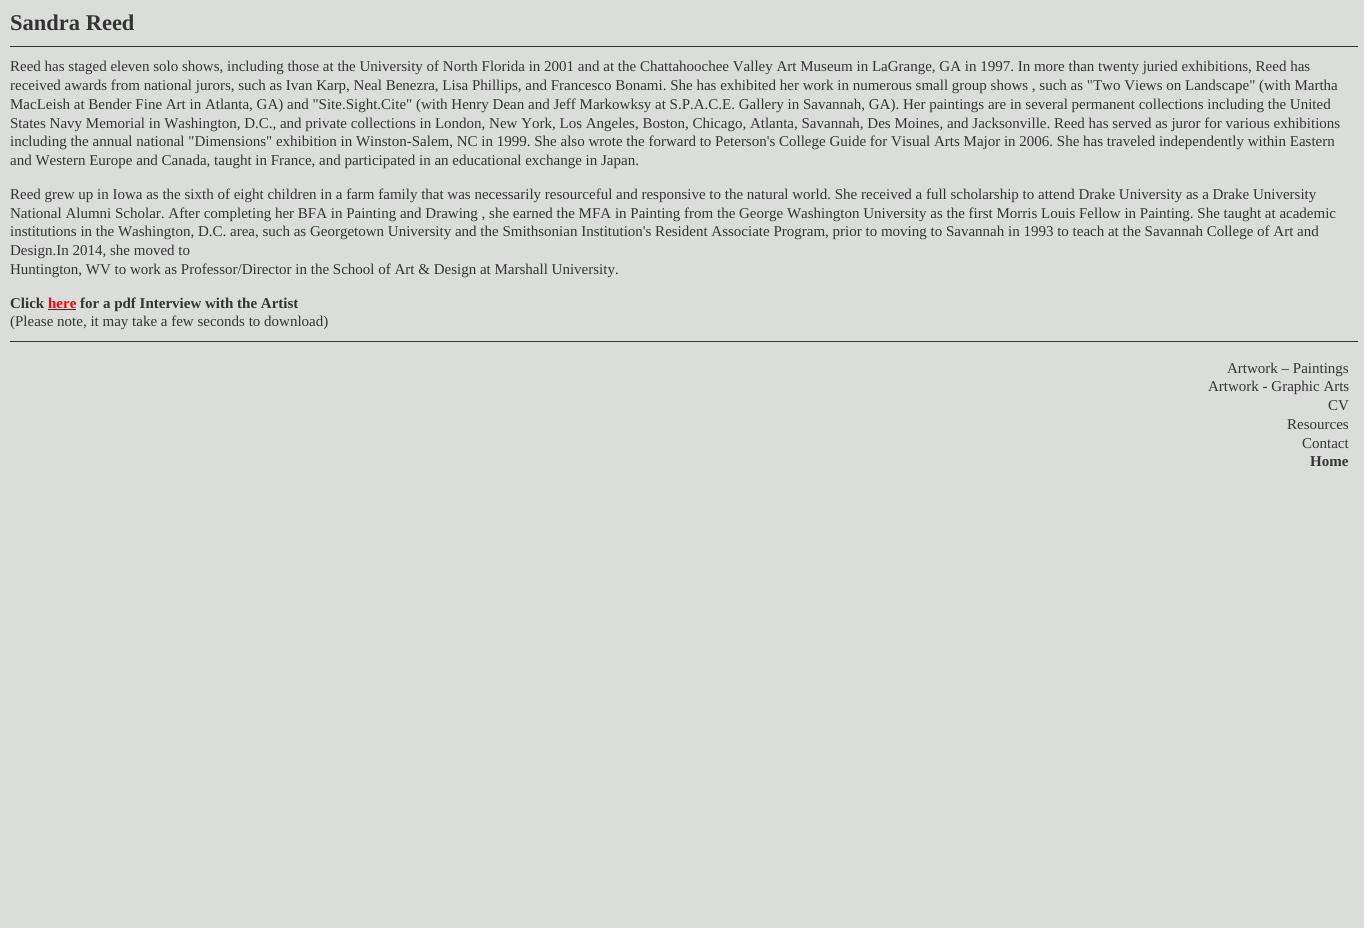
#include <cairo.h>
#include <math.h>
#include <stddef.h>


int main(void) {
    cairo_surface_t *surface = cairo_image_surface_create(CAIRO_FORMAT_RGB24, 1364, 928);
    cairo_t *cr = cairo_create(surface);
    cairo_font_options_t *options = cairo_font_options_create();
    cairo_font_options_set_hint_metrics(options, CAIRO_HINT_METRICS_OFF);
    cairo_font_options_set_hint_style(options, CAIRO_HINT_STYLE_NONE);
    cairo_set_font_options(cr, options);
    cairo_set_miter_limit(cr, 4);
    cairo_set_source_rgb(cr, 0.859, 0.867, 0.859);
    cairo_paint(cr);
    cairo_select_font_face(cr, "Liberation Serif", CAIRO_FONT_SLANT_NORMAL, CAIRO_FONT_WEIGHT_BOLD);
    cairo_set_font_size(cr, 22.5);
    cairo_set_source_rgb(cr, 0.2, 0.2, 0.2);
    cairo_move_to(cr, 10, 30);
    cairo_show_text(cr, "Sandra Reed");
    cairo_rectangle(cr, 10, 46, 1348, 1);
    cairo_fill(cr);
    cairo_select_font_face(cr, "Liberation Serif", CAIRO_FONT_SLANT_NORMAL, CAIRO_FONT_WEIGHT_NORMAL);
    cairo_set_font_size(cr, 15);
    cairo_move_to(cr, 10, 71);
    cairo_show_text(cr, "Reed has staged eleven solo shows, including those at the University of North Florida in 2001 and at the Chattahoochee Valley Art Museum in LaGrange, GA in 1997. In more than twenty juried exhibitions, Reed has");
    cairo_move_to(cr, 10, 90);
    cairo_show_text(cr, "received awards from national jurors, such as Ivan Karp, Neal Benezra, Lisa Phillips, and Francesco Bonami. She has exhibited her work in numerous small group shows , such as \"Two Views on Landscape\" (with Martha");
    cairo_move_to(cr, 10, 109);
    cairo_show_text(cr, "MacLeish at Bender Fine Art in Atlanta, GA) and \"Site.Sight.Cite\" (with Henry Dean and Jeff Markowksy at S.P.A.C.E. Gallery in Savannah, GA). Her paintings are in several permanent collections including the United");
    cairo_move_to(cr, 10, 128);
    cairo_show_text(cr, "States Navy Memorial in Washington, D.C., and private collections in London, New York, Los Angeles, Boston, Chicago, Atlanta, Savannah, Des Moines, and Jacksonville. Reed has served as juror for various exhibitions");
    cairo_move_to(cr, 10, 146);
    cairo_show_text(cr, "including the annual national \"Dimensions\" exhibition in Winston-Salem, NC in 1999. She also wrote the forward to Peterson's College Guide for Visual Arts Major in 2006. She has traveled independently within Eastern");
    cairo_move_to(cr, 10, 165);
    cairo_show_text(cr, "and Western Europe and Canada, taught in France, and participated in an educational exchange in Japan.");
    cairo_move_to(cr, 10, 199);
    cairo_show_text(cr, "Reed grew up in Iowa as the sixth of eight children in a farm family that was necessarily resourceful and responsive to the natural world. She received a full scholarship to attend Drake University as a Drake University");
    cairo_move_to(cr, 10, 218);
    cairo_show_text(cr, "National Alumni Scholar. After completing her BFA in Painting and Drawing , she earned the MFA in Painting from the George Washington University as the first Morris Louis Fellow in Painting. She taught at academic");
    cairo_move_to(cr, 10, 236);
    cairo_show_text(cr, "institutions in the Washington, D.C. area, such as Georgetown University and the Smithsonian Institution's Resident Associate Program, prior to moving to Savannah in 1993 to teach at the Savannah College of Art and");
    cairo_move_to(cr, 10, 255);
    cairo_show_text(cr, "Design.In 2014, she moved to");
    cairo_move_to(cr, 10, 274);
    cairo_show_text(cr, "Huntington, WV to work as Professor/Director in the School of Art & Design at Marshall University.");
    cairo_select_font_face(cr, "Liberation Serif", CAIRO_FONT_SLANT_NORMAL, CAIRO_FONT_WEIGHT_BOLD);
    cairo_move_to(cr, 10, 308);
    cairo_show_text(cr, "Click");
    cairo_set_source_rgb(cr, 1, 0, 0);
    cairo_move_to(cr, 48, 308);
    cairo_show_text(cr, "here");
    cairo_set_source_rgb(cr, 0.2, 0.2, 0.2);
    cairo_rectangle(cr, 48, 309, 28, 1);
    cairo_fill(cr);
    cairo_move_to(cr, 80, 308);
    cairo_show_text(cr, "for a pdf Interview with the Artist");
    cairo_select_font_face(cr, "Liberation Serif", CAIRO_FONT_SLANT_NORMAL, CAIRO_FONT_WEIGHT_NORMAL);
    cairo_move_to(cr, 10, 326);
    cairo_show_text(cr, "(Please note, it may take a few seconds to download)");
    cairo_rectangle(cr, 10, 341, 1348, 1);
    cairo_fill(cr);
    cairo_move_to(cr, 1227, 373);
    cairo_show_text(cr, "Artwork – Paintings");
    cairo_move_to(cr, 1208, 391);
    cairo_show_text(cr, "Artwork - Graphic Arts");
    cairo_move_to(cr, 1328, 410);
    cairo_show_text(cr, "CV");
    cairo_move_to(cr, 1287, 429);
    cairo_show_text(cr, "Resources");
    cairo_move_to(cr, 1302, 448);
    cairo_show_text(cr, "Contact");
    cairo_select_font_face(cr, "Liberation Serif", CAIRO_FONT_SLANT_NORMAL, CAIRO_FONT_WEIGHT_BOLD);
    cairo_move_to(cr, 1310, 466);
    cairo_show_text(cr, "Home");
    cairo_surface_write_to_png(surface, "page.png");
    cairo_font_options_destroy(options);
    cairo_destroy(cr);
    cairo_surface_destroy(surface);
    return 0;
}
